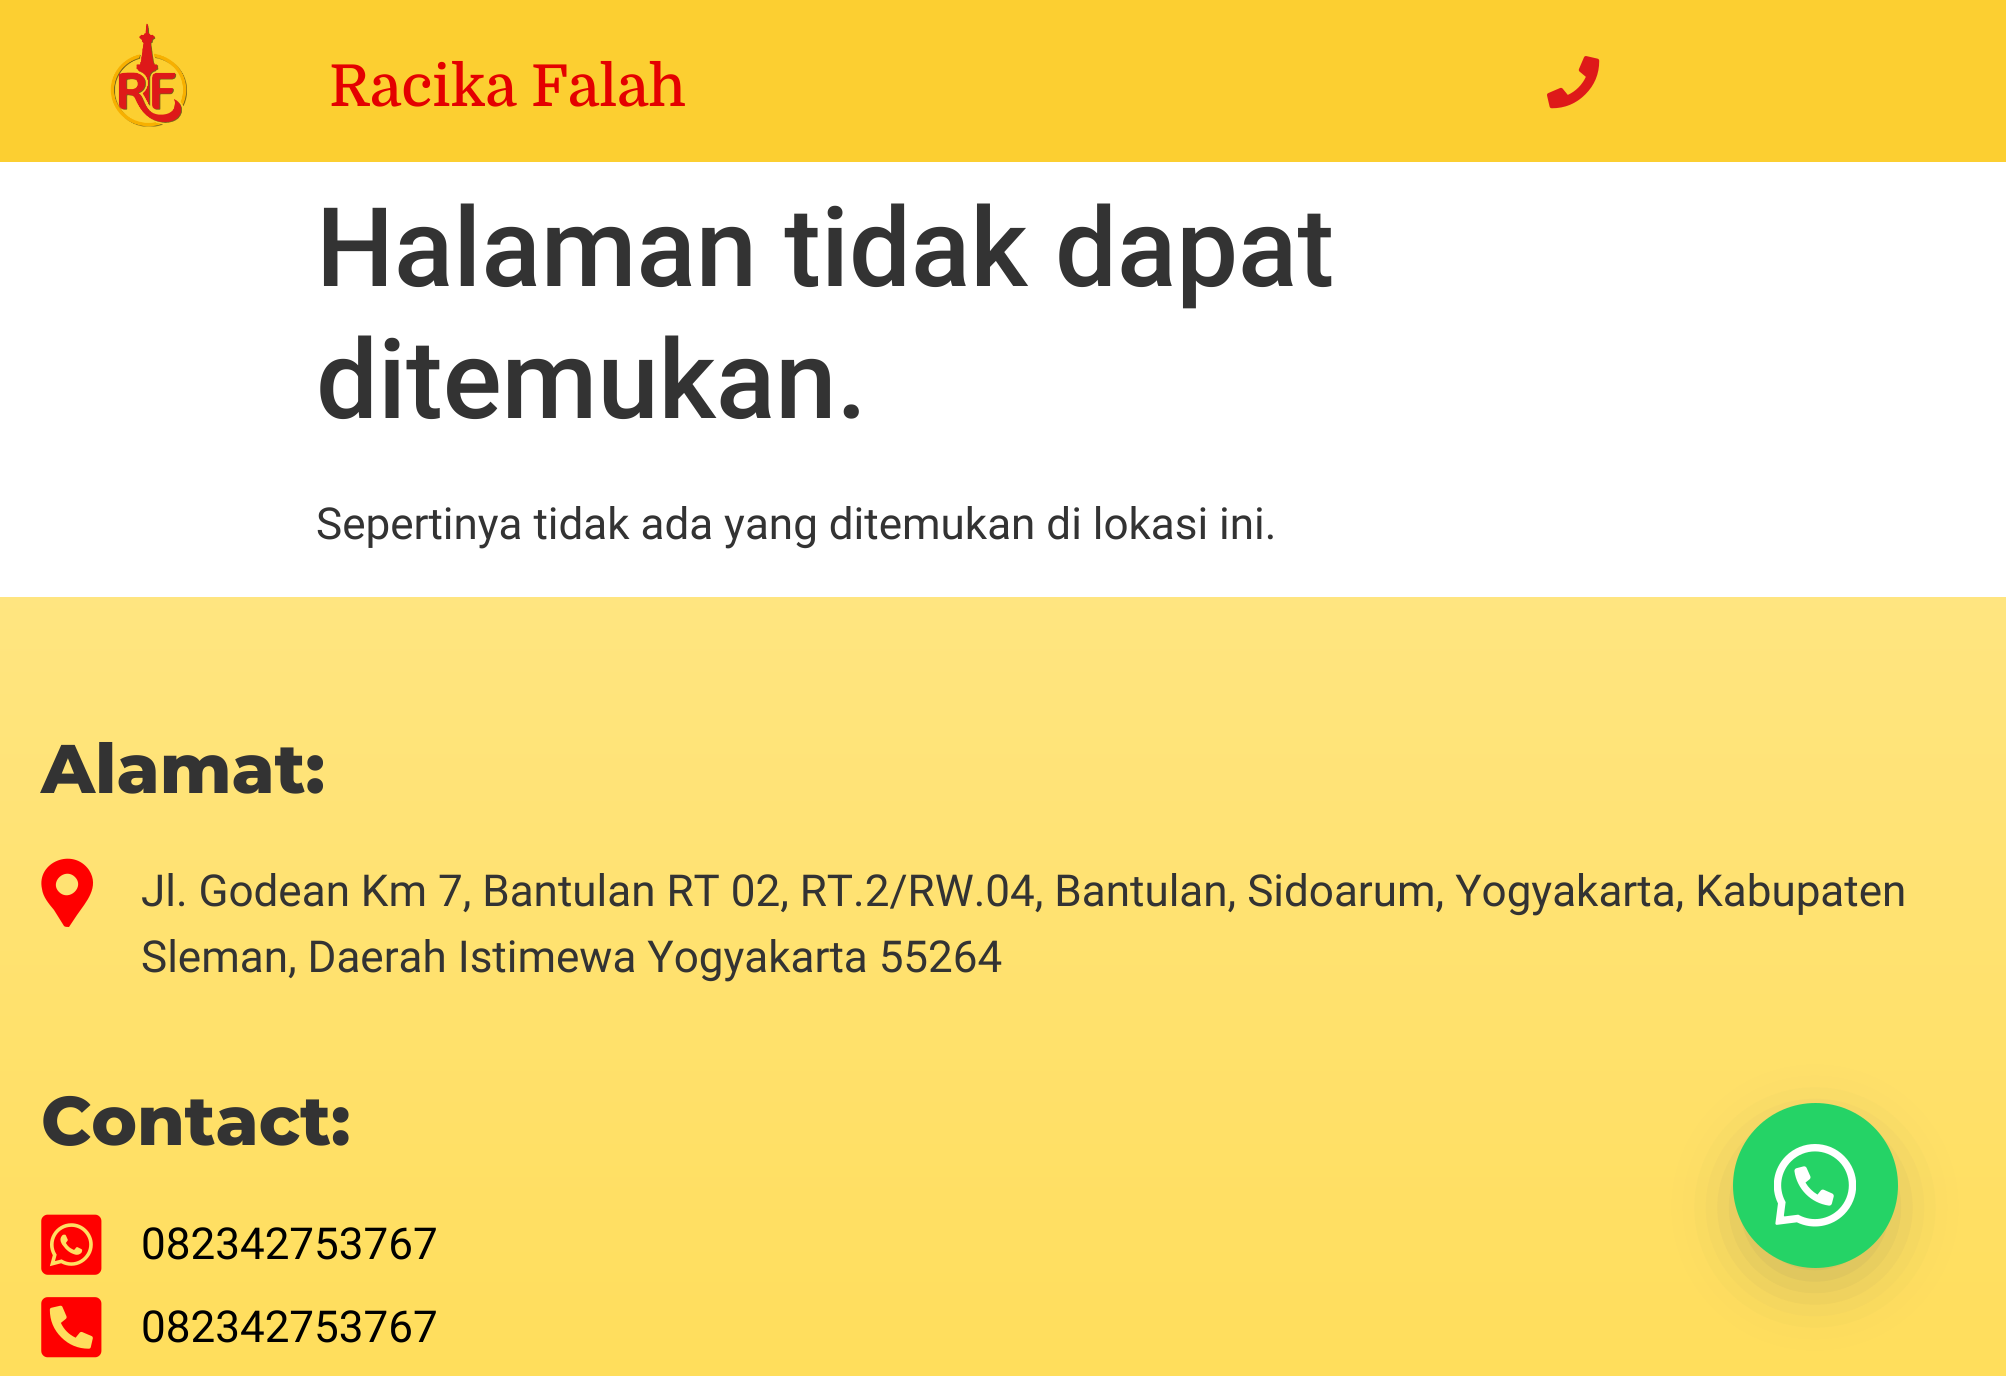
#include <cairo.h>
#include <math.h>
#include <stddef.h>


static void round_rect(cairo_t *cr, double x, double y, double w, double h, double r) {
    cairo_new_sub_path(cr);
    cairo_arc(cr, x + w - r, y + h - r, r, 0, M_PI / 2);
    cairo_arc(cr, x + r, y + h - r, r, M_PI / 2, M_PI);
    cairo_arc(cr, x + r, y + r, r, M_PI, 1.5 * M_PI);
    cairo_arc(cr, x + w - r, y + r, r, 1.5 * M_PI, 2 * M_PI);
    cairo_close_path(cr);
}

static void shadow(cairo_t *cr, double x, double y, double w, double h, double r, double blur, double alpha) {
    cairo_push_group_with_content(cr, CAIRO_CONTENT_ALPHA);
    cairo_set_operator(cr, CAIRO_OPERATOR_SOURCE);
    for (int i = 15; i >= -15 && fmin(w, h) + blur * i / 3 > 0; i -= 2) {
        double e = blur * i / 6;
        cairo_set_source_rgba(cr, 0, 0, 0, alpha * erfc((i - 1) / 8.5) / 2);
        round_rect(cr, x - e, y - e, w + 2 * e, h + 2 * e, fmax(0, fmin(r + e + blur * .6, fmin(w, h) / 2 + e)));
        cairo_fill(cr);
    }
    cairo_pattern_t *soft = cairo_pop_group(cr);
    cairo_mask(cr, soft);
    cairo_pattern_destroy(soft);
}

static void picture(cairo_t *cr, const char *path, double x, double y, double w, double h) {
    cairo_surface_t *image = cairo_image_surface_create_from_png(path);
    cairo_save(cr);
    cairo_set_source_surface(cr, image, x, y);
    cairo_rectangle(cr, x, y, w, h);
    cairo_fill(cr);
    cairo_restore(cr);
    cairo_surface_destroy(image);
}

int main(void) {
    cairo_surface_t *surface = cairo_image_surface_create(CAIRO_FORMAT_RGB24, 2006, 1376);
    cairo_t *cr = cairo_create(surface);
    cairo_font_options_t *options = cairo_font_options_create();
    cairo_font_options_set_hint_metrics(options, CAIRO_HINT_METRICS_OFF);
    cairo_font_options_set_hint_style(options, CAIRO_HINT_STYLE_NONE);
    cairo_set_font_options(cr, options);
    cairo_set_miter_limit(cr, 4);
    cairo_pattern_t *gradient;
    cairo_set_source_rgb(cr, 1, 1, 1);
    cairo_paint(cr);
    cairo_set_source_rgb(cr, 0.988, 0.812, 0.192);
    cairo_rectangle(cr, 0, 0, 2006, 162);
    cairo_fill(cr);
    picture(cr, "img1.png", 110, 23, 77, 104);
    cairo_select_font_face(cr, "Domine Medium", CAIRO_FONT_SLANT_NORMAL, CAIRO_FONT_WEIGHT_NORMAL);
    cairo_set_font_size(cr, 57.75);
    cairo_set_source_rgb(cr, 0.894, 0, 0);
    cairo_move_to(cr, 329, 106);
    cairo_show_text(cr, "Racika Falah");
    picture(cr, "img2.png", 1547, 56, 53, 53);
    cairo_select_font_face(cr, "Roboto Medium", CAIRO_FONT_SLANT_NORMAL, CAIRO_FONT_WEIGHT_NORMAL);
    cairo_set_font_size(cr, 110);
    cairo_set_source_rgb(cr, 0.2, 0.2, 0.2);
    cairo_move_to(cr, 316, 286);
    cairo_show_text(cr, "Halaman tidak dapat");
    cairo_move_to(cr, 316, 418);
    cairo_show_text(cr, "ditemukan.");
    cairo_select_font_face(cr, "Roboto", CAIRO_FONT_SLANT_NORMAL, CAIRO_FONT_WEIGHT_NORMAL);
    cairo_set_font_size(cr, 44);
    cairo_move_to(cr, 316, 539);
    cairo_show_text(cr, "Sepertinya tidak ada yang ditemukan di lokasi ini.");
    gradient = cairo_pattern_create_linear(1004, 597, 1004, 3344);
    cairo_pattern_add_color_stop_rgba(gradient, 0, 1, 0.898, 0.502, 1);
    cairo_pattern_add_color_stop_rgba(gradient, 1, 1, 0.796, 0, 1);
    cairo_set_source(cr, gradient);
    cairo_pattern_destroy(gradient);
    cairo_rectangle(cr, 0, 597, 2006, 779);
    cairo_fill(cr);
    cairo_select_font_face(cr, "Montserrat ExtraBold", CAIRO_FONT_SLANT_NORMAL, CAIRO_FONT_WEIGHT_NORMAL);
    cairo_set_font_size(cr, 68.75);
    cairo_set_source_rgb(cr, 0.2, 0.2, 0.2);
    cairo_move_to(cr, 41, 793);
    cairo_show_text(cr, "Alamat:");
    cairo_set_source_rgb(cr, 1, 0, 0);
    cairo_new_path(cr);
    cairo_move_to(cr, 64, 926);
    cairo_line_to(cr, 54, 910);
    cairo_curve_to(cr, 49, 904, 43, 897, 42, 889);
    cairo_curve_to(cr, 36, 862, 73, 847, 89, 870);
    cairo_curve_to(cr, 100, 887, 86, 902, 77, 915);
    cairo_line_to(cr, 69, 927);
    cairo_curve_to(cr, 67, 927, 65, 927, 64, 926);
    cairo_close_path(cr);
    cairo_move_to(cr, 59, 892);
    cairo_curve_to(cr, 69, 902, 85, 887, 75, 877);
    cairo_curve_to(cr, 65, 867, 49, 882, 59, 892);
    cairo_close_path(cr);
    cairo_fill(cr);
    cairo_select_font_face(cr, "Roboto", CAIRO_FONT_SLANT_NORMAL, CAIRO_FONT_WEIGHT_NORMAL);
    cairo_set_font_size(cr, 44);
    cairo_set_source_rgb(cr, 0.2, 0.2, 0.2);
    cairo_move_to(cr, 141, 906);
    cairo_show_text(cr, "Jl. Godean Km 7, Bantulan RT 02, RT.2/RW.04, Bantulan, Sidoarum, Yogyakarta, Kabupaten");
    cairo_move_to(cr, 141, 972);
    cairo_show_text(cr, "Sleman, Daerah Istimewa Yogyakarta 55264");
    cairo_select_font_face(cr, "Montserrat ExtraBold", CAIRO_FONT_SLANT_NORMAL, CAIRO_FONT_WEIGHT_NORMAL);
    cairo_set_font_size(cr, 68.75);
    cairo_move_to(cr, 41, 1145);
    cairo_show_text(cr, "Contact:");
    picture(cr, "img3.png", 41, 1214, 61, 61);
    cairo_select_font_face(cr, "Roboto", CAIRO_FONT_SLANT_NORMAL, CAIRO_FONT_WEIGHT_NORMAL);
    cairo_set_font_size(cr, 44);
    cairo_set_source_rgb(cr, 0, 0, 0);
    cairo_move_to(cr, 141, 1259);
    cairo_show_text(cr, "082342753767");
    picture(cr, "img4.png", 41, 1297, 61, 61);
    cairo_move_to(cr, 141, 1342);
    cairo_show_text(cr, "082342753767");
    cairo_set_source_rgb(cr, 0.176, 0.243, 0.31);
    shadow(cr, 1746, 1139, 138, 137, 68.5, 34.5, 0.3);
    cairo_set_source_rgb(cr, 0.145, 0.827, 0.4);
    cairo_arc(cr, 1815.5, 1185.5, 82.5, 0, 2 * M_PI);
    cairo_fill(cr);
    picture(cr, "img5.png", 1774, 1144, 82, 83);
    cairo_surface_write_to_png(surface, "page.png");
    cairo_font_options_destroy(options);
    cairo_destroy(cr);
    cairo_surface_destroy(surface);
    return 0;
}
